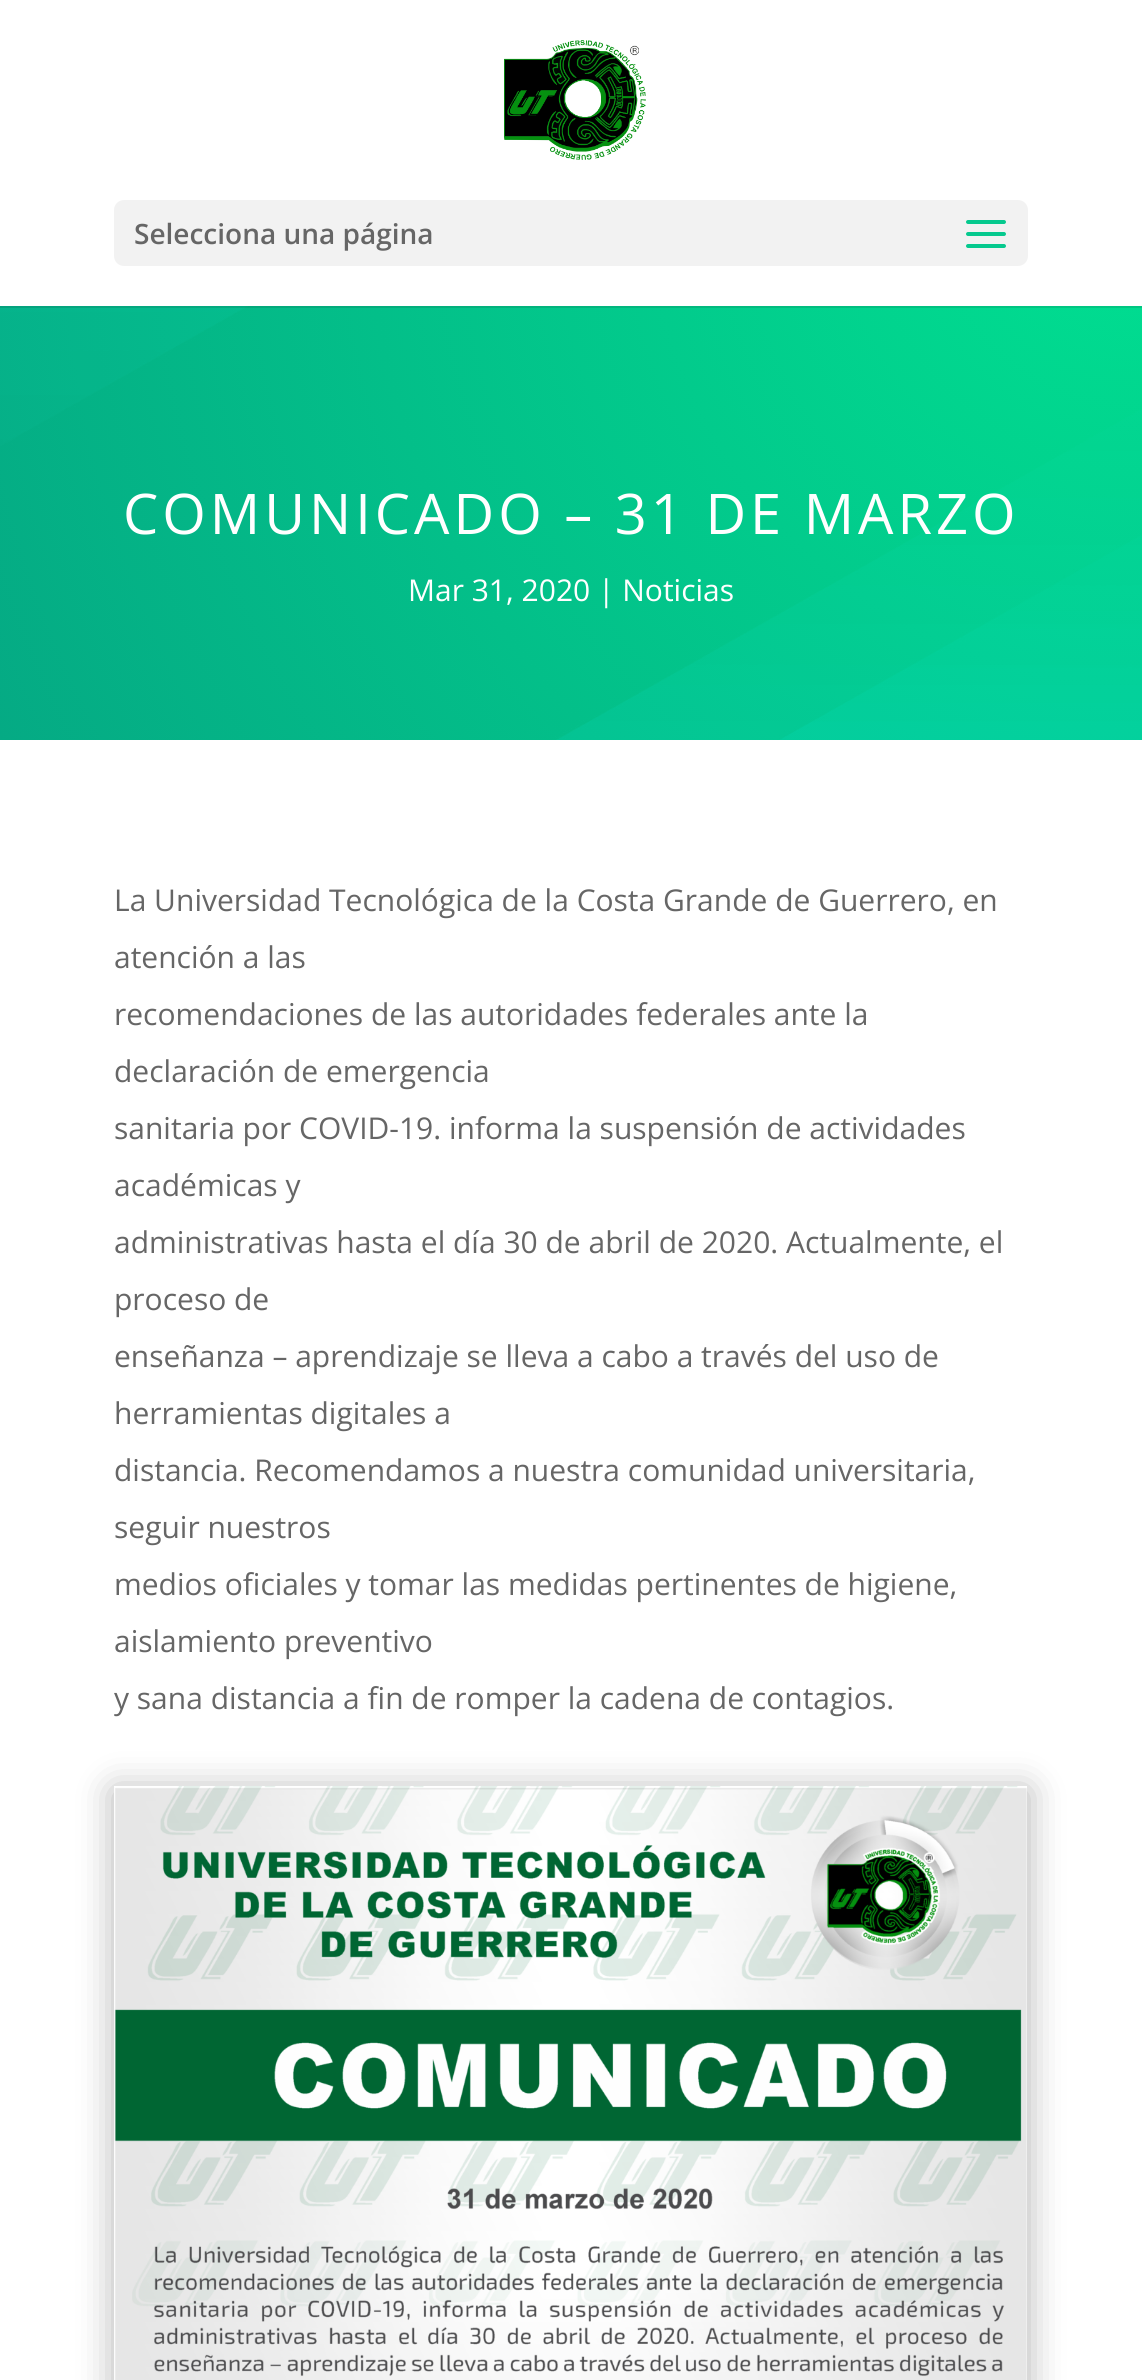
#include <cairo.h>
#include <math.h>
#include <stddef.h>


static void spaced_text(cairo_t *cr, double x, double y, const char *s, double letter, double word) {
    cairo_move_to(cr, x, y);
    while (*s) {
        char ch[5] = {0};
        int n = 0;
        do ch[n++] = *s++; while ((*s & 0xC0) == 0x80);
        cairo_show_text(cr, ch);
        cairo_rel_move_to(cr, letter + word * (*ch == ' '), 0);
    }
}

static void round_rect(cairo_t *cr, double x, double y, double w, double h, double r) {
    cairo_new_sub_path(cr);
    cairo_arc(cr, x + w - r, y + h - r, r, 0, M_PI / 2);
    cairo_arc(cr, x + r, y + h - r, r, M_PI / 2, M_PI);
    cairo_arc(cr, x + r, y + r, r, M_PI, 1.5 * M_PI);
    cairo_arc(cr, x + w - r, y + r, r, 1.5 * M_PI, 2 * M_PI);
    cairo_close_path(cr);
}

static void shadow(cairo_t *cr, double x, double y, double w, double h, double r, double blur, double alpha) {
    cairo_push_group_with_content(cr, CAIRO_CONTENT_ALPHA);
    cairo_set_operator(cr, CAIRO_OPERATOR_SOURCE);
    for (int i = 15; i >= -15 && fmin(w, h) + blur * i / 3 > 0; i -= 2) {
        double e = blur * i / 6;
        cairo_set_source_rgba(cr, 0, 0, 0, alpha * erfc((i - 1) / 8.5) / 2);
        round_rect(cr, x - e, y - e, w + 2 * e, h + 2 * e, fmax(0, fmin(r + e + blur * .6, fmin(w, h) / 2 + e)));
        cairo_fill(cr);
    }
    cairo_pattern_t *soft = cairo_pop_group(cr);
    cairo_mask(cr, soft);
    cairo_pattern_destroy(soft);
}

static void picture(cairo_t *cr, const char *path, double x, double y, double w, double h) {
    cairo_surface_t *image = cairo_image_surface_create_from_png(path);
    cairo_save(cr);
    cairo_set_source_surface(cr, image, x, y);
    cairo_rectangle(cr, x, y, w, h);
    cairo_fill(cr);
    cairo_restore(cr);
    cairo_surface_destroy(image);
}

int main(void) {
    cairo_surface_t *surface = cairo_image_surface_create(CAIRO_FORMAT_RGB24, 1142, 2380);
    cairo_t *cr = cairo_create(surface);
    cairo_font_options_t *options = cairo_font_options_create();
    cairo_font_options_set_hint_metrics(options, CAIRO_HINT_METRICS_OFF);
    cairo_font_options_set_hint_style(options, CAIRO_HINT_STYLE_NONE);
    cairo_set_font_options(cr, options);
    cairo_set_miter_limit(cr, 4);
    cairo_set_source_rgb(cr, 1, 1, 1);
    cairo_paint(cr);
    picture(cr, "img3.png", 0, 306, 1142, 434);
    cairo_set_source_rgba(cr, 0, 0, 0, 0.1);
    cairo_rectangle(cr, 0, 306, 1142, 2);
    cairo_fill(cr);
    picture(cr, "img1.png", 504, 40, 142, 120);
    cairo_set_source_rgb(cr, 0.949, 0.949, 0.949);
    round_rect(cr, 114, 200, 914, 66, 10);
    cairo_fill(cr);
    cairo_select_font_face(cr, "Open Sans SemiBold", CAIRO_FONT_SLANT_NORMAL, CAIRO_FONT_WEIGHT_NORMAL);
    cairo_set_font_size(cr, 28);
    cairo_set_source_rgb(cr, 0.4, 0.4, 0.4);
    cairo_move_to(cr, 134, 244);
    cairo_show_text(cr, "Selecciona una página");
    picture(cr, "img2.png", 966, 220, 40, 28);
    cairo_select_font_face(cr, "Open Sans", CAIRO_FONT_SLANT_NORMAL, CAIRO_FONT_WEIGHT_NORMAL);
    cairo_set_font_size(cr, 56);
    cairo_set_source_rgb(cr, 1, 1, 1);
    spaced_text(cr, 123, 534, "COMUNICADO – 31 DE MARZO", 4, 0);
    cairo_set_font_size(cr, 30);
    cairo_move_to(cr, 408, 601);
    cairo_show_text(cr, "Mar 31, 2020 | Noticias");
    cairo_set_source_rgb(cr, 0.4, 0.4, 0.4);
    cairo_move_to(cr, 114, 911);
    cairo_show_text(cr, "La Universidad Tecnológica de la Costa Grande de Guerrero, en");
    cairo_move_to(cr, 114, 968);
    cairo_show_text(cr, "atención a las");
    cairo_move_to(cr, 114, 1025);
    cairo_show_text(cr, "recomendaciones de las autoridades federales ante la");
    cairo_move_to(cr, 114, 1082);
    cairo_show_text(cr, "declaración de emergencia");
    cairo_move_to(cr, 114, 1139);
    cairo_show_text(cr, "sanitaria por COVID-19. informa la suspensión de actividades");
    cairo_move_to(cr, 114, 1196);
    cairo_show_text(cr, "académicas y");
    cairo_move_to(cr, 114, 1253);
    cairo_show_text(cr, "administrativas hasta el día 30 de abril de 2020. Actualmente, el");
    cairo_move_to(cr, 114, 1310);
    cairo_show_text(cr, "proceso de");
    cairo_move_to(cr, 114, 1367);
    cairo_show_text(cr, "enseñanza – aprendizaje se lleva a cabo a través del uso de");
    cairo_move_to(cr, 114, 1424);
    cairo_show_text(cr, "herramientas digitales a");
    cairo_move_to(cr, 114, 1481);
    cairo_show_text(cr, "distancia. Recomendamos a nuestra comunidad universitaria,");
    cairo_move_to(cr, 114, 1538);
    cairo_show_text(cr, "seguir nuestros");
    cairo_move_to(cr, 114, 1595);
    cairo_show_text(cr, "medios oficiales y tomar las medidas pertinentes de higiene,");
    cairo_move_to(cr, 114, 1652);
    cairo_show_text(cr, "aislamiento preventivo");
    cairo_move_to(cr, 114, 1709);
    cairo_show_text(cr, "y sana distancia a fin de romper la cadena de contagios.");
    cairo_set_source_rgb(cr, 0, 0, 0);
    shadow(cr, 114, 1790, 914, 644, 0, 18, 0.3);
    picture(cr, "img4.png", 114, 1786, 913, 594);
    cairo_surface_write_to_png(surface, "page.png");
    cairo_font_options_destroy(options);
    cairo_destroy(cr);
    cairo_surface_destroy(surface);
    return 0;
}
